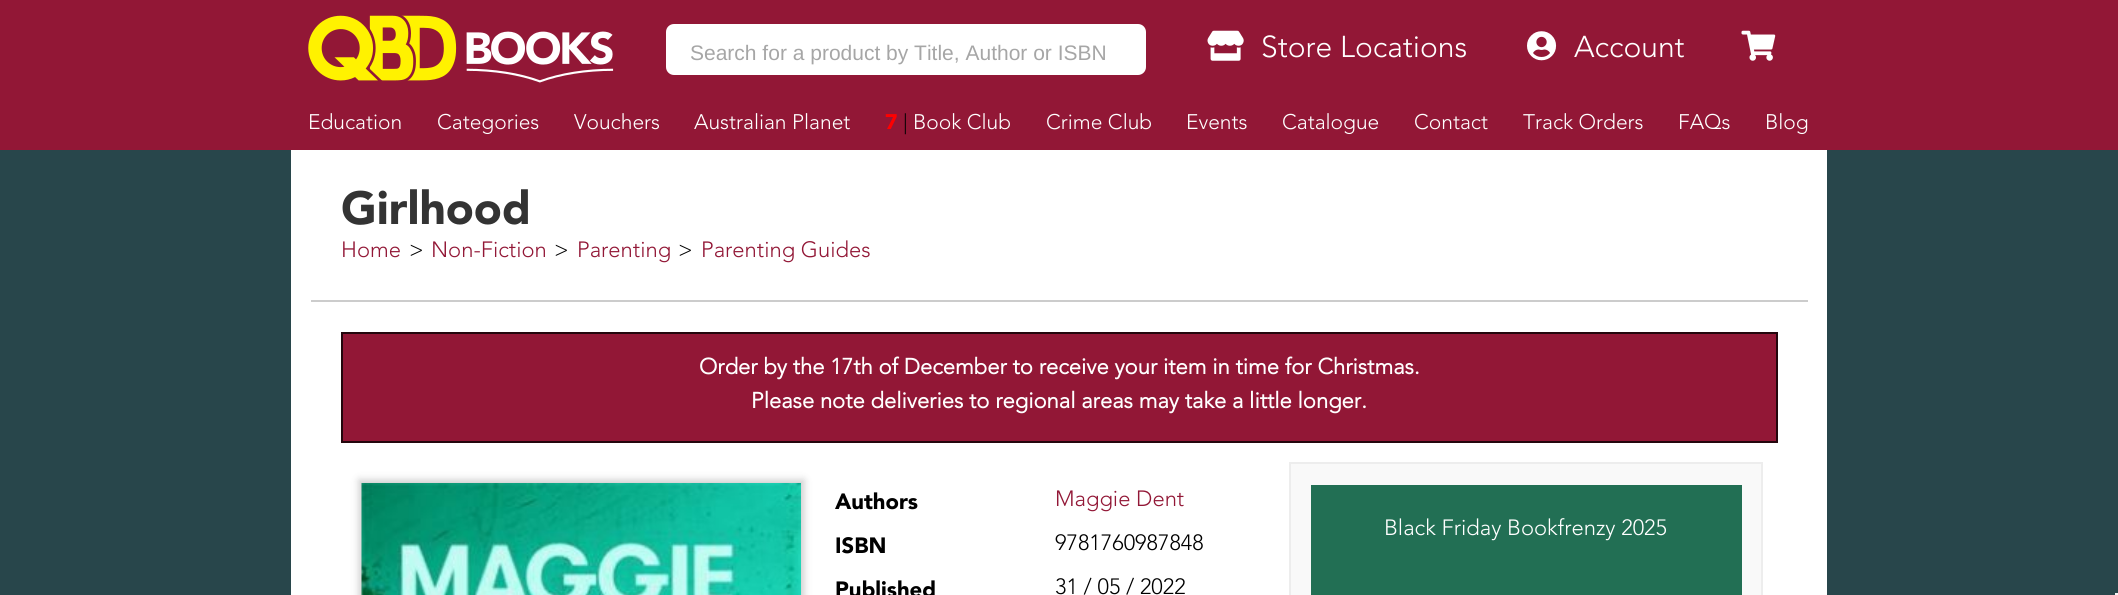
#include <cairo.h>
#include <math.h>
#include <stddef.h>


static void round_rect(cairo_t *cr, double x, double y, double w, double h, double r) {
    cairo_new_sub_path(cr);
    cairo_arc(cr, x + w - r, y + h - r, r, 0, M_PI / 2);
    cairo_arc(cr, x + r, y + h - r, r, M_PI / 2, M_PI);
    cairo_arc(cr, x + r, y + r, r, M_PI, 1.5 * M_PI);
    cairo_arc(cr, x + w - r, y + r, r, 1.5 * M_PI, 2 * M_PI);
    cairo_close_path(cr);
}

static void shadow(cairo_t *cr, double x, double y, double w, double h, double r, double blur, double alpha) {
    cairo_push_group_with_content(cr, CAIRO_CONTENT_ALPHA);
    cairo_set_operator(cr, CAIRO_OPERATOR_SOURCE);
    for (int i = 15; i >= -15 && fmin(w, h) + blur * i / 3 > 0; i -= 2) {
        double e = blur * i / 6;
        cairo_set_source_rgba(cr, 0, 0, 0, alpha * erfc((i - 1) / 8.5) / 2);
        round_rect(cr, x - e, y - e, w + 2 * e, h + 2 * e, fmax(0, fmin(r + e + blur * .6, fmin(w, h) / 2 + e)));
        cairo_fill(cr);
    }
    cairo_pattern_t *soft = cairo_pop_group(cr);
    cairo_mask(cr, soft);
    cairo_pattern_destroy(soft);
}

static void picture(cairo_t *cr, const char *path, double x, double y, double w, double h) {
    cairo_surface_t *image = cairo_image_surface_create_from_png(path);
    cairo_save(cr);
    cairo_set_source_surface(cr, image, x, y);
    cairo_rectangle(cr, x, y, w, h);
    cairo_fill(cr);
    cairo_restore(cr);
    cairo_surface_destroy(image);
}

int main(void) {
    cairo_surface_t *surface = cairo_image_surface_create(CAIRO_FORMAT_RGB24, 2118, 595);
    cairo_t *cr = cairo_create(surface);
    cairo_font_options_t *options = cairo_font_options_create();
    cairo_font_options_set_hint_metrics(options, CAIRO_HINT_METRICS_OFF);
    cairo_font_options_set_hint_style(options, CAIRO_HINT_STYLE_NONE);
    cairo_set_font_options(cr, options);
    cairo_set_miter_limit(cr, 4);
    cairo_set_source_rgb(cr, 0.157, 0.275, 0.294);
    cairo_paint(cr);
    cairo_set_source_rgb(cr, 0.573, 0.09, 0.212);
    cairo_rectangle(cr, 0, 0, 2118, 150);
    cairo_fill(cr);
    picture(cr, "img1.png", 308, 15, 306, 68);
    cairo_set_source_rgb(cr, 1, 1, 1);
    round_rect(cr, 666, 24, 480, 51, 8);
    cairo_fill(cr);
    cairo_select_font_face(cr, "Liberation Sans", CAIRO_FONT_SLANT_NORMAL, CAIRO_FONT_WEIGHT_NORMAL);
    cairo_set_font_size(cr, 21);
    cairo_set_source_rgb(cr, 0.651, 0.651, 0.651);
    cairo_move_to(cr, 690, 60);
    cairo_show_text(cr, "Search for a product by Title, Author or ISBN");
    picture(cr, "img2.png", 1207, 30, 37, 31);
    cairo_select_font_face(cr, "Avenir Light", CAIRO_FONT_SLANT_NORMAL, CAIRO_FONT_WEIGHT_NORMAL);
    cairo_set_font_size(cr, 30);
    cairo_set_source_rgb(cr, 1, 1, 1);
    cairo_move_to(cr, 1261, 57);
    cairo_show_text(cr, "Store Locations");
    picture(cr, "img3.png", 1527, 31, 30, 30);
    cairo_move_to(cr, 1574, 57);
    cairo_show_text(cr, "Account");
    picture(cr, "img4.png", 1741, 30, 35, 31);
    cairo_set_font_size(cr, 21);
    cairo_move_to(cr, 308, 129);
    cairo_show_text(cr, "Education");
    cairo_move_to(cr, 437, 129);
    cairo_show_text(cr, "Categories");
    cairo_move_to(cr, 574, 129);
    cairo_show_text(cr, "Vouchers");
    cairo_move_to(cr, 694, 129);
    cairo_show_text(cr, "Australian Planet");
    cairo_select_font_face(cr, "Avenir Black", CAIRO_FONT_SLANT_NORMAL, CAIRO_FONT_WEIGHT_NORMAL);
    cairo_set_source_rgb(cr, 1, 0, 0);
    cairo_move_to(cr, 885, 129);
    cairo_show_text(cr, "7");
    cairo_select_font_face(cr, "Avenir Light", CAIRO_FONT_SLANT_NORMAL, CAIRO_FONT_WEIGHT_NORMAL);
    cairo_set_source_rgb(cr, 0, 0, 0);
    cairo_move_to(cr, 903, 129);
    cairo_show_text(cr, "|");
    cairo_set_source_rgb(cr, 1, 1, 1);
    cairo_move_to(cr, 913, 129);
    cairo_show_text(cr, "Book Club");
    cairo_move_to(cr, 1046, 129);
    cairo_show_text(cr, "Crime Club");
    cairo_move_to(cr, 1186, 129);
    cairo_show_text(cr, "Events");
    cairo_move_to(cr, 1282, 129);
    cairo_show_text(cr, "Catalogue");
    cairo_move_to(cr, 1414, 129);
    cairo_show_text(cr, "Contact");
    cairo_move_to(cr, 1523, 129);
    cairo_show_text(cr, "Track Orders");
    cairo_move_to(cr, 1678, 129);
    cairo_show_text(cr, "FAQs");
    cairo_move_to(cr, 1765, 129);
    cairo_show_text(cr, "Blog");
    cairo_rectangle(cr, 291, 150, 1536, 445);
    cairo_fill(cr);
    cairo_set_source_rgb(cr, 0.8, 0.8, 0.8);
    cairo_rectangle(cr, 311, 300, 1497, 2);
    cairo_fill(cr);
    cairo_select_font_face(cr, "Avenir Black", CAIRO_FONT_SLANT_NORMAL, CAIRO_FONT_WEIGHT_NORMAL);
    cairo_set_font_size(cr, 46);
    cairo_set_source_rgb(cr, 0.2, 0.2, 0.2);
    cairo_move_to(cr, 341, 224);
    cairo_show_text(cr, "Girlhood");
    cairo_select_font_face(cr, "Avenir Light", CAIRO_FONT_SLANT_NORMAL, CAIRO_FONT_WEIGHT_NORMAL);
    cairo_set_font_size(cr, 22);
    cairo_set_source_rgb(cr, 0.573, 0.09, 0.212);
    cairo_move_to(cr, 341, 257);
    cairo_show_text(cr, "Home");
    cairo_set_source_rgb(cr, 0, 0, 0);
    cairo_move_to(cr, 409, 257);
    cairo_show_text(cr, ">");
    cairo_set_source_rgb(cr, 0.573, 0.09, 0.212);
    cairo_move_to(cr, 431, 257);
    cairo_show_text(cr, "Non-Fiction");
    cairo_set_source_rgb(cr, 0, 0, 0);
    cairo_move_to(cr, 554, 257);
    cairo_show_text(cr, ">");
    cairo_set_source_rgb(cr, 0.573, 0.09, 0.212);
    cairo_move_to(cr, 577, 257);
    cairo_show_text(cr, "Parenting");
    cairo_set_source_rgb(cr, 0, 0, 0);
    cairo_move_to(cr, 678, 257);
    cairo_show_text(cr, ">");
    cairo_set_source_rgb(cr, 0.573, 0.09, 0.212);
    cairo_move_to(cr, 701, 257);
    cairo_show_text(cr, "Parenting Guides");
    cairo_rectangle(cr, 342, 333, 1435, 109);
    cairo_fill_preserve(cr);
    cairo_set_source_rgb(cr, 0.141, 0.024, 0.051);
    cairo_stroke(cr);
    cairo_select_font_face(cr, "Avenir", CAIRO_FONT_SLANT_NORMAL, CAIRO_FONT_WEIGHT_BOLD);
    cairo_set_source_rgb(cr, 1, 1, 1);
    cairo_move_to(cr, 699, 374);
    cairo_show_text(cr, "Order by the 17th of December to receive your item in time for Christmas.");
    cairo_move_to(cr, 751, 408);
    cairo_show_text(cr, "Please note deliveries to regional areas may take a little longer.");
    cairo_set_source_rgb(cr, 0, 0, 0);
    shadow(cr, 359, 480, 445, 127, 0, 4, 0.2);
    picture(cr, "img5.png", 361, 483, 440, 112);
    cairo_select_font_face(cr, "Avenir Black", CAIRO_FONT_SLANT_NORMAL, CAIRO_FONT_WEIGHT_NORMAL);
    cairo_set_source_rgb(cr, 0, 0, 0);
    cairo_move_to(cr, 835, 509);
    cairo_show_text(cr, "Authors");
    cairo_select_font_face(cr, "Avenir Light", CAIRO_FONT_SLANT_NORMAL, CAIRO_FONT_WEIGHT_NORMAL);
    cairo_set_source_rgb(cr, 0.573, 0.09, 0.212);
    cairo_move_to(cr, 1055, 506);
    cairo_show_text(cr, "Maggie Dent");
    cairo_select_font_face(cr, "Avenir Black", CAIRO_FONT_SLANT_NORMAL, CAIRO_FONT_WEIGHT_NORMAL);
    cairo_set_source_rgb(cr, 0, 0, 0);
    cairo_move_to(cr, 835, 553);
    cairo_show_text(cr, "ISBN");
    cairo_select_font_face(cr, "Avenir Light", CAIRO_FONT_SLANT_NORMAL, CAIRO_FONT_WEIGHT_NORMAL);
    cairo_move_to(cr, 1055, 550);
    cairo_show_text(cr, "9781760987848");
    cairo_select_font_face(cr, "Avenir Black", CAIRO_FONT_SLANT_NORMAL, CAIRO_FONT_WEIGHT_NORMAL);
    cairo_move_to(cr, 835, 597);
    cairo_show_text(cr, "Published");
    cairo_select_font_face(cr, "Avenir Light", CAIRO_FONT_SLANT_NORMAL, CAIRO_FONT_WEIGHT_NORMAL);
    cairo_move_to(cr, 1055, 594);
    cairo_show_text(cr, "31 / 05 / 2022");
    cairo_set_source_rgb(cr, 0.976, 0.976, 0.976);
    cairo_rectangle(cr, 1290, 463, 472, 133);
    cairo_fill_preserve(cr);
    cairo_set_source_rgb(cr, 0.929, 0.929, 0.929);
    cairo_stroke(cr);
    cairo_set_source_rgb(cr, 0.133, 0.435, 0.329);
    cairo_rectangle(cr, 1311, 485, 431, 110);
    cairo_fill(cr);
    cairo_set_source_rgb(cr, 1, 1, 1);
    cairo_move_to(cr, 1384, 535);
    cairo_show_text(cr, "Black Friday Bookfrenzy 2025");
    cairo_set_source_rgb(cr, 0.961, 0.961, 0.961);
    cairo_rectangle(cr, 2115, 593, 3, 2);
    cairo_fill(cr);
    cairo_surface_write_to_png(surface, "page.png");
    cairo_font_options_destroy(options);
    cairo_destroy(cr);
    cairo_surface_destroy(surface);
    return 0;
}
